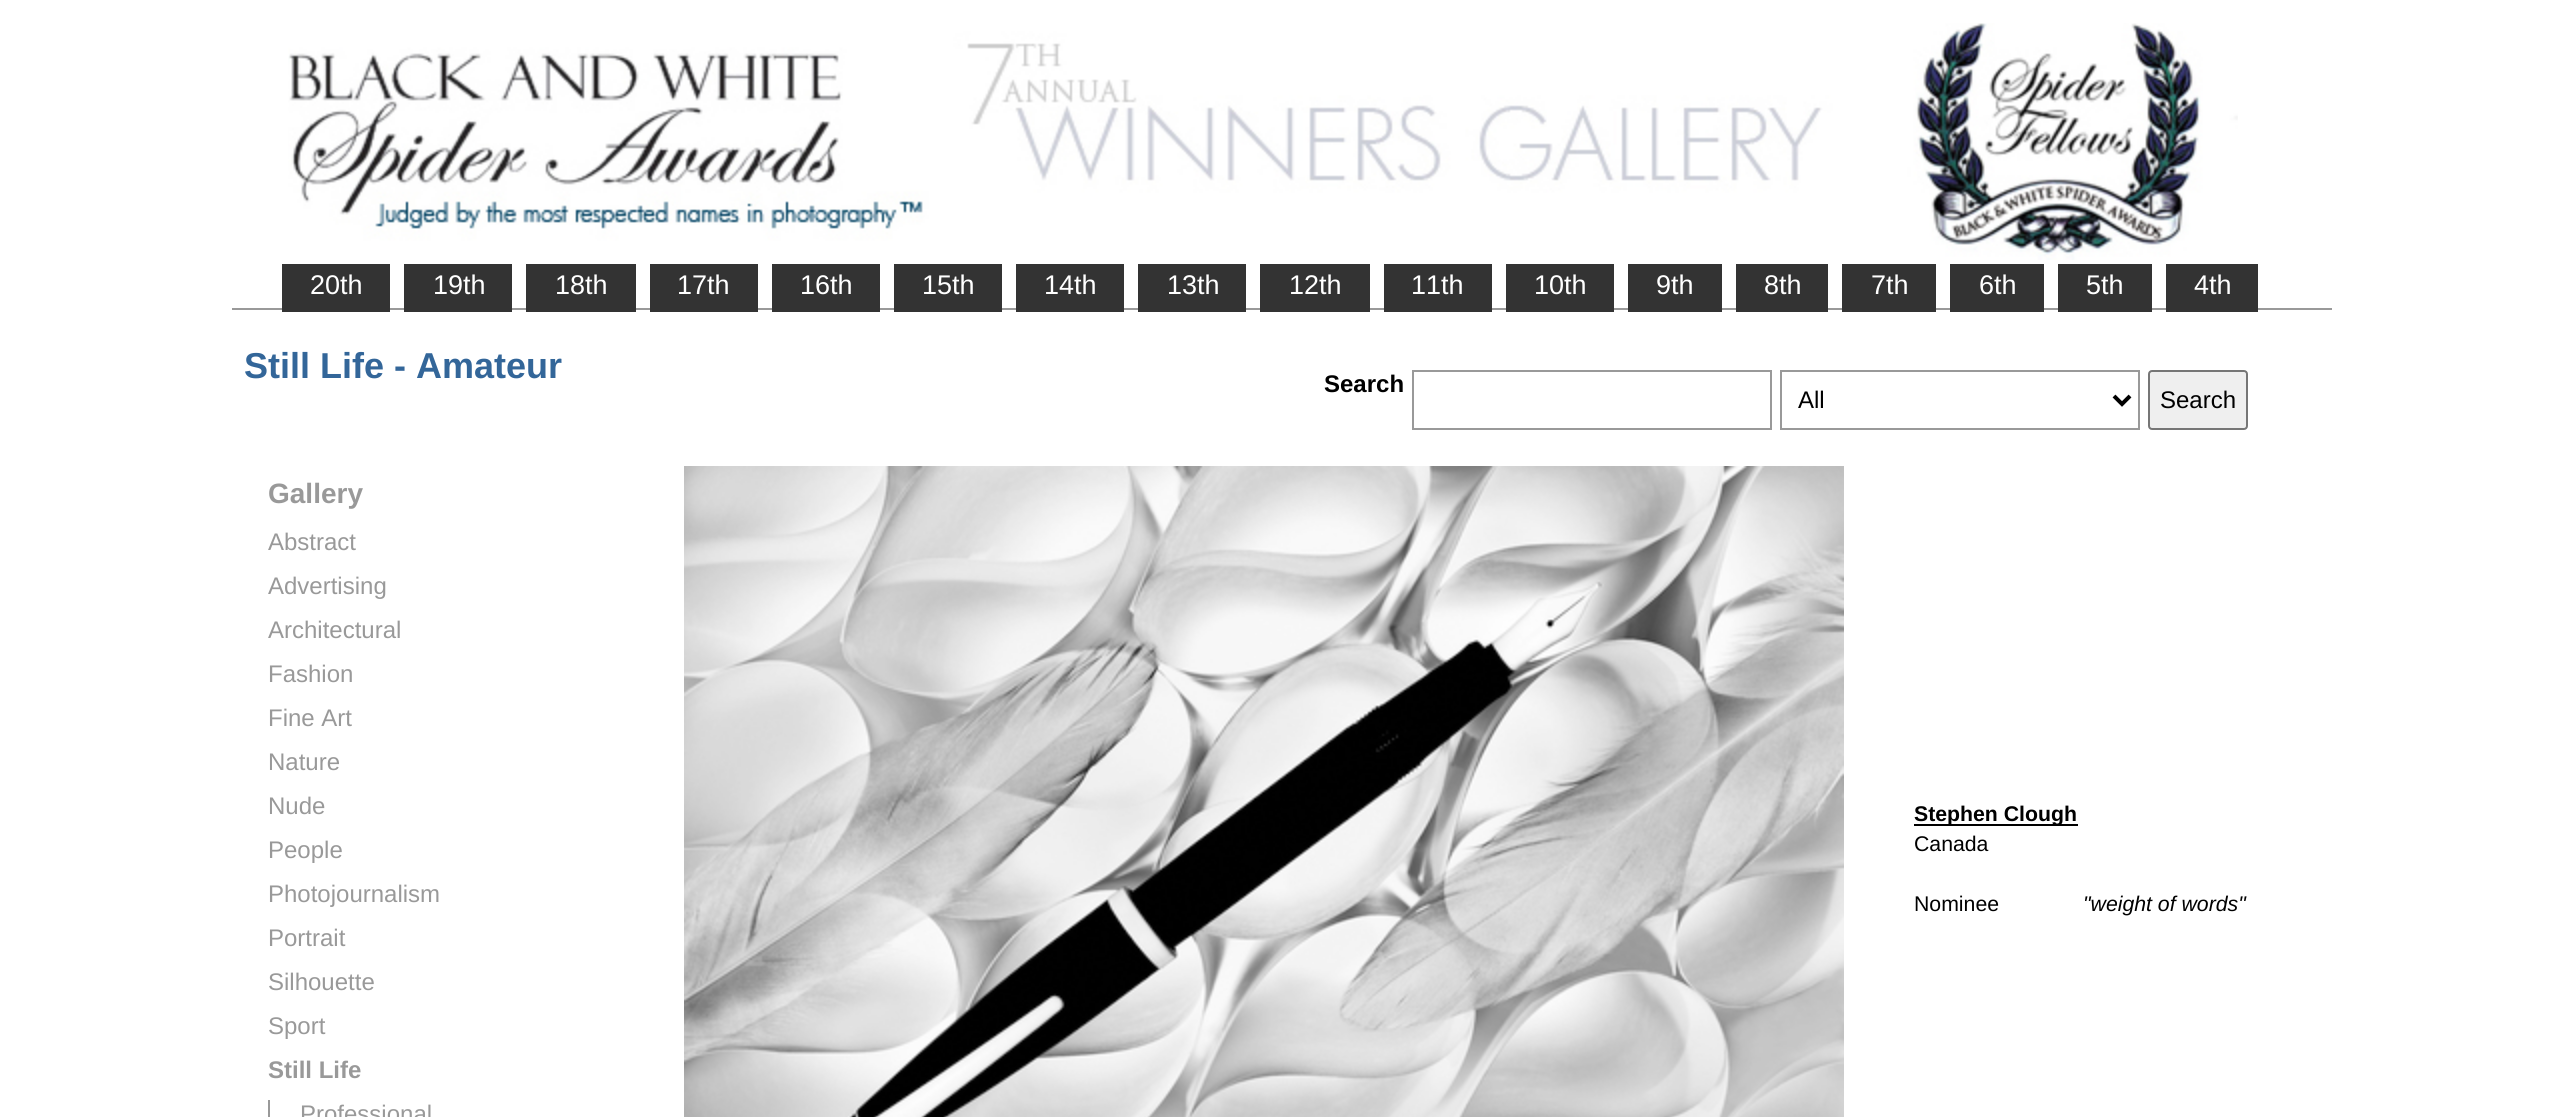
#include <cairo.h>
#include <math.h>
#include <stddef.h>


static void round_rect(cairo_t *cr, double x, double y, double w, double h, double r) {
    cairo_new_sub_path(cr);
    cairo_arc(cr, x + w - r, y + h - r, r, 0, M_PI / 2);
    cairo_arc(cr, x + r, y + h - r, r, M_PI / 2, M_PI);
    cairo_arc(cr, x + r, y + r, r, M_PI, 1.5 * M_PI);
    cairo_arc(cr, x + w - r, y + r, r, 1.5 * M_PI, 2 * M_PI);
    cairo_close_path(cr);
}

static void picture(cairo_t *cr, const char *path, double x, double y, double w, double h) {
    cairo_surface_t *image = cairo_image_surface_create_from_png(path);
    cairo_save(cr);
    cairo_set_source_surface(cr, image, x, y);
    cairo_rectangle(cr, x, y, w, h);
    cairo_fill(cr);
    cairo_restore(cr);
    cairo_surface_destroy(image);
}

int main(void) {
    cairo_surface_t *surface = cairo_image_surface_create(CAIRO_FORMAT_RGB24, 2564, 1117);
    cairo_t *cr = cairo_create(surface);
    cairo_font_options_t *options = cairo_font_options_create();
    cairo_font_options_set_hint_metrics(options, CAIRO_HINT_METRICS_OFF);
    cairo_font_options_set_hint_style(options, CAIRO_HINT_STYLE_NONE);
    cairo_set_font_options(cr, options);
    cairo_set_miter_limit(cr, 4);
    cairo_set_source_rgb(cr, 1, 1, 1);
    cairo_paint(cr);
    picture(cr, "img1.png", 288, 23, 1950, 237);
    cairo_set_source_rgb(cr, 0.6, 0.6, 0.6);
    cairo_rectangle(cr, 232, 308, 2100, 2);
    cairo_fill(cr);
    cairo_set_source_rgb(cr, 0.2, 0.2, 0.2);
    cairo_rectangle(cr, 282, 264, 108, 48);
    cairo_fill(cr);
    cairo_select_font_face(cr, "Liberation Sans", CAIRO_FONT_SLANT_NORMAL, CAIRO_FONT_WEIGHT_NORMAL);
    cairo_set_font_size(cr, 27);
    cairo_set_source_rgb(cr, 1, 1, 1);
    cairo_move_to(cr, 310, 294);
    cairo_show_text(cr, "20th");
    cairo_set_source_rgb(cr, 0.2, 0.2, 0.2);
    cairo_rectangle(cr, 404, 264, 108, 48);
    cairo_fill(cr);
    cairo_set_source_rgb(cr, 1, 1, 1);
    cairo_move_to(cr, 433, 294);
    cairo_show_text(cr, "19th");
    cairo_set_source_rgb(cr, 0.2, 0.2, 0.2);
    cairo_rectangle(cr, 526, 264, 110, 48);
    cairo_fill(cr);
    cairo_set_source_rgb(cr, 1, 1, 1);
    cairo_move_to(cr, 555, 294);
    cairo_show_text(cr, "18th");
    cairo_set_source_rgb(cr, 0.2, 0.2, 0.2);
    cairo_rectangle(cr, 650, 264, 108, 48);
    cairo_fill(cr);
    cairo_set_source_rgb(cr, 1, 1, 1);
    cairo_move_to(cr, 677, 294);
    cairo_show_text(cr, "17th");
    cairo_set_source_rgb(cr, 0.2, 0.2, 0.2);
    cairo_rectangle(cr, 772, 264, 108, 48);
    cairo_fill(cr);
    cairo_set_source_rgb(cr, 1, 1, 1);
    cairo_move_to(cr, 800, 294);
    cairo_show_text(cr, "16th");
    cairo_set_source_rgb(cr, 0.2, 0.2, 0.2);
    cairo_rectangle(cr, 894, 264, 108, 48);
    cairo_fill(cr);
    cairo_set_source_rgb(cr, 1, 1, 1);
    cairo_move_to(cr, 922, 294);
    cairo_show_text(cr, "15th");
    cairo_set_source_rgb(cr, 0.2, 0.2, 0.2);
    cairo_rectangle(cr, 1016, 264, 108, 48);
    cairo_fill(cr);
    cairo_set_source_rgb(cr, 1, 1, 1);
    cairo_move_to(cr, 1044, 294);
    cairo_show_text(cr, "14th");
    cairo_set_source_rgb(cr, 0.2, 0.2, 0.2);
    cairo_rectangle(cr, 1138, 264, 108, 48);
    cairo_fill(cr);
    cairo_set_source_rgb(cr, 1, 1, 1);
    cairo_move_to(cr, 1167, 294);
    cairo_show_text(cr, "13th");
    cairo_set_source_rgb(cr, 0.2, 0.2, 0.2);
    cairo_rectangle(cr, 1260, 264, 110, 48);
    cairo_fill(cr);
    cairo_set_source_rgb(cr, 1, 1, 1);
    cairo_move_to(cr, 1289, 294);
    cairo_show_text(cr, "12th");
    cairo_set_source_rgb(cr, 0.2, 0.2, 0.2);
    cairo_rectangle(cr, 1384, 264, 108, 48);
    cairo_fill(cr);
    cairo_set_source_rgb(cr, 1, 1, 1);
    cairo_move_to(cr, 1411, 294);
    cairo_show_text(cr, "11th");
    cairo_set_source_rgb(cr, 0.2, 0.2, 0.2);
    cairo_rectangle(cr, 1506, 264, 108, 48);
    cairo_fill(cr);
    cairo_set_source_rgb(cr, 1, 1, 1);
    cairo_move_to(cr, 1534, 294);
    cairo_show_text(cr, "10th");
    cairo_set_source_rgb(cr, 0.2, 0.2, 0.2);
    cairo_rectangle(cr, 1628, 264, 94, 48);
    cairo_fill(cr);
    cairo_set_source_rgb(cr, 1, 1, 1);
    cairo_move_to(cr, 1656, 294);
    cairo_show_text(cr, "9th");
    cairo_set_source_rgb(cr, 0.2, 0.2, 0.2);
    cairo_rectangle(cr, 1736, 264, 92, 48);
    cairo_fill(cr);
    cairo_set_source_rgb(cr, 1, 1, 1);
    cairo_move_to(cr, 1764, 294);
    cairo_show_text(cr, "8th");
    cairo_set_source_rgb(cr, 0.2, 0.2, 0.2);
    cairo_rectangle(cr, 1842, 264, 94, 48);
    cairo_fill(cr);
    cairo_set_source_rgb(cr, 1, 1, 1);
    cairo_move_to(cr, 1871, 294);
    cairo_show_text(cr, "7th");
    cairo_set_source_rgb(cr, 0.2, 0.2, 0.2);
    cairo_rectangle(cr, 1950, 264, 94, 48);
    cairo_fill(cr);
    cairo_set_source_rgb(cr, 1, 1, 1);
    cairo_move_to(cr, 1979, 294);
    cairo_show_text(cr, "6th");
    cairo_set_source_rgb(cr, 0.2, 0.2, 0.2);
    cairo_rectangle(cr, 2058, 264, 94, 48);
    cairo_fill(cr);
    cairo_set_source_rgb(cr, 1, 1, 1);
    cairo_move_to(cr, 2086, 294);
    cairo_show_text(cr, "5th");
    cairo_set_source_rgb(cr, 0.2, 0.2, 0.2);
    cairo_rectangle(cr, 2166, 264, 92, 48);
    cairo_fill(cr);
    cairo_set_source_rgb(cr, 1, 1, 1);
    cairo_move_to(cr, 2194, 294);
    cairo_show_text(cr, "4th");
    cairo_select_font_face(cr, "Liberation Sans", CAIRO_FONT_SLANT_NORMAL, CAIRO_FONT_WEIGHT_BOLD);
    cairo_set_font_size(cr, 36);
    cairo_set_source_rgb(cr, 0.2, 0.4, 0.6);
    cairo_move_to(cr, 244, 378);
    cairo_show_text(cr, "Still Life - Amateur");
    cairo_set_font_size(cr, 24);
    cairo_set_source_rgb(cr, 0, 0, 0);
    cairo_move_to(cr, 1324, 392);
    cairo_show_text(cr, "Search");
    cairo_rectangle(cr, 1413, 371, 358, 58);
    cairo_set_source_rgb(cr, 0.6, 0.6, 0.6);
    cairo_stroke(cr);
    cairo_rectangle(cr, 1781, 371, 358, 58);
    cairo_stroke(cr);
    cairo_new_path(cr);
    cairo_move_to(cr, 2114, 396);
    cairo_line_to(cr, 2122, 404);
    cairo_line_to(cr, 2130, 396);
    cairo_set_source_rgb(cr, 0, 0, 0);
    cairo_set_line_width(cr, 4);
    cairo_stroke(cr);
    cairo_select_font_face(cr, "Liberation Sans", CAIRO_FONT_SLANT_NORMAL, CAIRO_FONT_WEIGHT_NORMAL);
    cairo_move_to(cr, 1798, 408);
    cairo_show_text(cr, "All");
    cairo_set_source_rgb(cr, 0.937, 0.937, 0.937);
    round_rect(cr, 2149, 371, 98, 58, 3);
    cairo_fill_preserve(cr);
    cairo_set_source_rgb(cr, 0.463, 0.463, 0.463);
    cairo_set_line_width(cr, 2);
    cairo_stroke(cr);
    cairo_set_source_rgb(cr, 0, 0, 0);
    cairo_move_to(cr, 2160, 408);
    cairo_show_text(cr, "Search");
    cairo_select_font_face(cr, "Liberation Sans", CAIRO_FONT_SLANT_NORMAL, CAIRO_FONT_WEIGHT_BOLD);
    cairo_set_font_size(cr, 28);
    cairo_set_source_rgb(cr, 0.6, 0.6, 0.6);
    cairo_move_to(cr, 268, 503);
    cairo_show_text(cr, "Gallery");
    cairo_select_font_face(cr, "Liberation Sans", CAIRO_FONT_SLANT_NORMAL, CAIRO_FONT_WEIGHT_NORMAL);
    cairo_set_font_size(cr, 24);
    cairo_move_to(cr, 268, 550);
    cairo_show_text(cr, "Abstract");
    cairo_move_to(cr, 268, 594);
    cairo_show_text(cr, "Advertising");
    cairo_move_to(cr, 268, 638);
    cairo_show_text(cr, "Architectural");
    cairo_move_to(cr, 268, 682);
    cairo_show_text(cr, "Fashion");
    cairo_move_to(cr, 268, 726);
    cairo_show_text(cr, "Fine Art");
    cairo_move_to(cr, 268, 770);
    cairo_show_text(cr, "Nature");
    cairo_move_to(cr, 268, 814);
    cairo_show_text(cr, "Nude");
    cairo_move_to(cr, 268, 858);
    cairo_show_text(cr, "People");
    cairo_move_to(cr, 268, 902);
    cairo_show_text(cr, "Photojournalism");
    cairo_move_to(cr, 268, 946);
    cairo_show_text(cr, "Portrait");
    cairo_move_to(cr, 268, 990);
    cairo_show_text(cr, "Silhouette");
    cairo_move_to(cr, 268, 1034);
    cairo_show_text(cr, "Sport");
    cairo_select_font_face(cr, "Liberation Sans", CAIRO_FONT_SLANT_NORMAL, CAIRO_FONT_WEIGHT_BOLD);
    cairo_move_to(cr, 268, 1078);
    cairo_show_text(cr, "Still Life");
    cairo_rectangle(cr, 268, 1100, 2, 17);
    cairo_fill(cr);
    cairo_select_font_face(cr, "Liberation Sans", CAIRO_FONT_SLANT_NORMAL, CAIRO_FONT_WEIGHT_NORMAL);
    cairo_move_to(cr, 300, 1122);
    cairo_show_text(cr, "Professional");
    picture(cr, "img2.png", 684, 466, 1160, 651);
    cairo_set_source_rgb(cr, 0, 0, 0);
    cairo_rectangle(cr, 1914, 824, 164, 2);
    cairo_fill(cr);
    cairo_select_font_face(cr, "Liberation Sans", CAIRO_FONT_SLANT_NORMAL, CAIRO_FONT_WEIGHT_BOLD);
    cairo_set_font_size(cr, 21.25);
    cairo_move_to(cr, 1914, 821);
    cairo_show_text(cr, "Stephen Clough");
    cairo_select_font_face(cr, "Liberation Sans", CAIRO_FONT_SLANT_NORMAL, CAIRO_FONT_WEIGHT_NORMAL);
    cairo_move_to(cr, 1914, 851);
    cairo_show_text(cr, "Canada");
    cairo_move_to(cr, 1914, 911);
    cairo_show_text(cr, "Nominee");
    cairo_select_font_face(cr, "Liberation Sans", CAIRO_FONT_SLANT_ITALIC, CAIRO_FONT_WEIGHT_NORMAL);
    cairo_move_to(cr, 2083, 911);
    cairo_show_text(cr, "\"weight of words\"");
    cairo_surface_write_to_png(surface, "page.png");
    cairo_font_options_destroy(options);
    cairo_destroy(cr);
    cairo_surface_destroy(surface);
    return 0;
}
